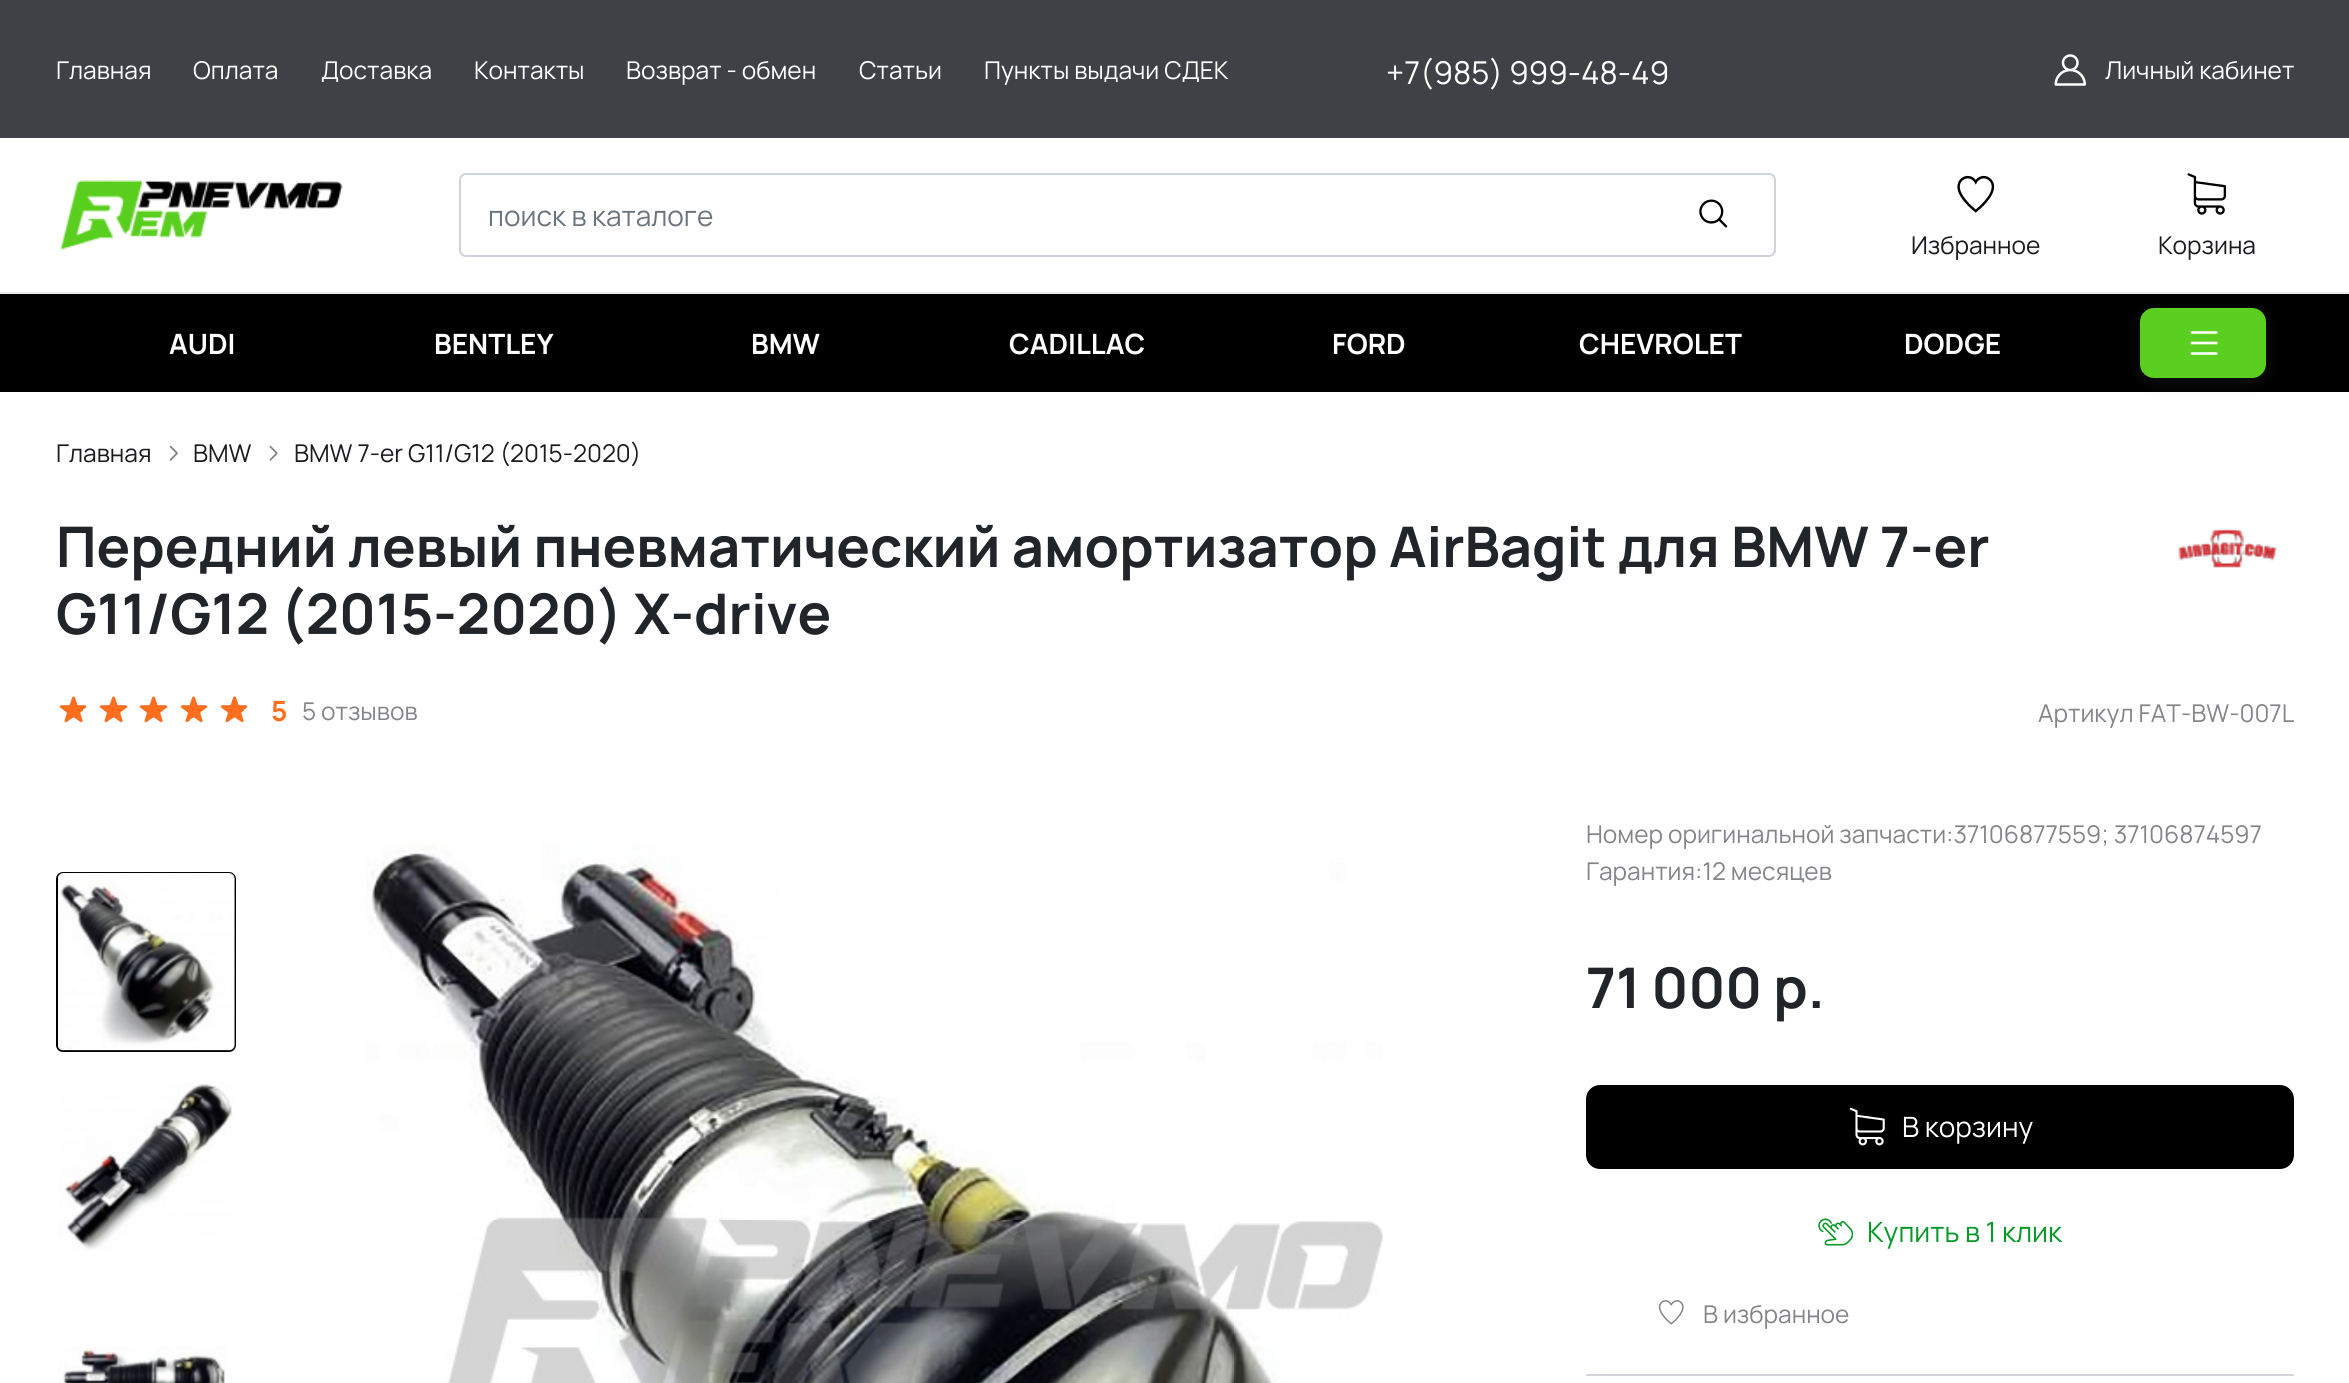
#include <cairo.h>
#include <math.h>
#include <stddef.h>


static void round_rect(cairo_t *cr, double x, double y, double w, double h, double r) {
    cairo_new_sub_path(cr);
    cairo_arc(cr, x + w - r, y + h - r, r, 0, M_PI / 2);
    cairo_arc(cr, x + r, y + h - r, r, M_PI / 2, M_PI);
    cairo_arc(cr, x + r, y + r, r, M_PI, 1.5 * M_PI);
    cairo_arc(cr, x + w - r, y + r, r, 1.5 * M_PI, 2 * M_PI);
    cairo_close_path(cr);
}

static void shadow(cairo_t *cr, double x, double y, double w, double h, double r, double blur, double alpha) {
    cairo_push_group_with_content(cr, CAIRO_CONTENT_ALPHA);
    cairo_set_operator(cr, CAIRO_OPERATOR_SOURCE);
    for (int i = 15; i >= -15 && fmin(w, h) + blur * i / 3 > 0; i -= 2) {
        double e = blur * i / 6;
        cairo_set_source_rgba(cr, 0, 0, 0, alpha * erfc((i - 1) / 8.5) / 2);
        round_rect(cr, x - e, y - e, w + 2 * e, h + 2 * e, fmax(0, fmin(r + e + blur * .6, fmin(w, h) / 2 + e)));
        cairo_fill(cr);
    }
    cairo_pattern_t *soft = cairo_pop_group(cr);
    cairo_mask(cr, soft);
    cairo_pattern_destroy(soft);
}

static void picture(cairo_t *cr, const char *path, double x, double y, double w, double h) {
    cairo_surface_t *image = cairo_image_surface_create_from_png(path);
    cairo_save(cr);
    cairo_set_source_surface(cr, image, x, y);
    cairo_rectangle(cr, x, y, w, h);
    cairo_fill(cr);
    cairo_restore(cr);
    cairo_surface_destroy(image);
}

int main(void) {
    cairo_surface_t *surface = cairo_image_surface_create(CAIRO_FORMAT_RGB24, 2349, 1383);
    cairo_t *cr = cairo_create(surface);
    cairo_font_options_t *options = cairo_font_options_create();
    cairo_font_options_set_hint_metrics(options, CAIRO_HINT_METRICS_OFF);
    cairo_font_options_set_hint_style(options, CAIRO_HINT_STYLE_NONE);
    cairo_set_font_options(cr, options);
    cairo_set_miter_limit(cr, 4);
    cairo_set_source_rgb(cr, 1, 1, 1);
    cairo_paint(cr);
    cairo_set_source_rgb(cr, 0.251, 0.255, 0.278);
    cairo_rectangle(cr, 0, 0, 2349, 138);
    cairo_fill(cr);
    cairo_select_font_face(cr, "Manrope", CAIRO_FONT_SLANT_NORMAL, CAIRO_FONT_WEIGHT_NORMAL);
    cairo_set_font_size(cr, 24.5);
    cairo_set_source_rgb(cr, 1, 1, 1);
    cairo_move_to(cr, 56, 79);
    cairo_show_text(cr, "Главная");
    cairo_move_to(cr, 193, 79);
    cairo_show_text(cr, "Оплата");
    cairo_move_to(cr, 321, 79);
    cairo_show_text(cr, "Доставка");
    cairo_move_to(cr, 474, 79);
    cairo_show_text(cr, "Контакты");
    cairo_move_to(cr, 626, 79);
    cairo_show_text(cr, "Возврат - обмен");
    cairo_move_to(cr, 859, 79);
    cairo_show_text(cr, "Статьи");
    cairo_move_to(cr, 984, 79);
    cairo_show_text(cr, "Пункты выдачи СДЕК");
    cairo_set_font_size(cr, 31.5);
    cairo_move_to(cr, 1386, 84);
    cairo_show_text(cr, "+7(985) 999-48-49");
    picture(cr, "img1.png", 2054, 54, 32, 32);
    cairo_set_font_size(cr, 24.5);
    cairo_move_to(cr, 2105, 79);
    cairo_show_text(cr, "Личный кабинет");
    cairo_set_source_rgb(cr, 0.918, 0.922, 0.933);
    cairo_rectangle(cr, 0, 292, 2349, 2);
    cairo_fill(cr);
    picture(cr, "img2.png", 60, 180, 283, 71);
    round_rect(cr, 460, 174, 1315, 82, 6);
    cairo_set_source_rgb(cr, 0.808, 0.831, 0.855);
    cairo_stroke(cr);
    cairo_set_font_size(cr, 28);
    cairo_set_source_rgb(cr, 0.424, 0.459, 0.49);
    cairo_move_to(cr, 488, 226);
    cairo_show_text(cr, "поиск в каталоге");
    picture(cr, "img3.png", 1699, 199, 29, 29);
    picture(cr, "img4.png", 1957, 175, 38, 38);
    cairo_set_font_size(cr, 24.5);
    cairo_set_source_rgb(cr, 0.106, 0.106, 0.122);
    cairo_move_to(cr, 1911, 254);
    cairo_show_text(cr, "Избранное");
    picture(cr, "img5.png", 2187, 173, 39, 42);
    cairo_move_to(cr, 2158, 254);
    cairo_show_text(cr, "Корзина");
    cairo_set_source_rgb(cr, 0, 0, 0);
    cairo_rectangle(cr, 0, 294, 2349, 98);
    cairo_fill(cr);
    cairo_select_font_face(cr, "Manrope", CAIRO_FONT_SLANT_NORMAL, CAIRO_FONT_WEIGHT_BOLD);
    cairo_set_font_size(cr, 28);
    cairo_set_source_rgb(cr, 1, 1, 1);
    cairo_move_to(cr, 169, 354);
    cairo_show_text(cr, "AUDI");
    cairo_move_to(cr, 434, 354);
    cairo_show_text(cr, "BENTLEY");
    cairo_move_to(cr, 751, 354);
    cairo_show_text(cr, "BMW");
    cairo_move_to(cr, 1009, 354);
    cairo_show_text(cr, "CADILLAC");
    cairo_move_to(cr, 1332, 354);
    cairo_show_text(cr, "FORD");
    cairo_move_to(cr, 1579, 354);
    cairo_show_text(cr, "CHEVROLET");
    cairo_move_to(cr, 1904, 354);
    cairo_show_text(cr, "DODGE");
    cairo_set_source_rgb(cr, 0.212, 0.212, 0.212);
    shadow(cr, 2140, 312, 126, 70, 14, 7, 0.32);
    cairo_set_source_rgb(cr, 0.353, 0.812, 0.122);
    round_rect(cr, 2140, 308, 126, 70, 14);
    cairo_fill(cr);
    picture(cr, "img6.png", 2190, 331, 28, 24);
    cairo_select_font_face(cr, "Manrope", CAIRO_FONT_SLANT_NORMAL, CAIRO_FONT_WEIGHT_NORMAL);
    cairo_set_font_size(cr, 24.5);
    cairo_set_source_rgb(cr, 0.106, 0.106, 0.122);
    cairo_move_to(cr, 56, 462);
    cairo_show_text(cr, "Главная");
    picture(cr, "img7.png", 169, 445, 9, 16);
    cairo_move_to(cr, 193, 462);
    cairo_show_text(cr, "BMW");
    picture(cr, "img8.png", 269, 445, 9, 16);
    cairo_move_to(cr, 294, 462);
    cairo_show_text(cr, "BMW 7-er G11/G12 (2015-2020)");
    cairo_select_font_face(cr, "Manrope", CAIRO_FONT_SLANT_NORMAL, CAIRO_FONT_WEIGHT_BOLD);
    cairo_set_font_size(cr, 56);
    cairo_set_source_rgb(cr, 0.129, 0.145, 0.161);
    cairo_move_to(cr, 56, 567);
    cairo_show_text(cr, "Передний левый пневматический амортизатор AirBagit для BMW 7-er");
    cairo_move_to(cr, 56, 634);
    cairo_show_text(cr, "G11/G12 (2015-2020) X-drive");
    picture(cr, "img9.png", 60, 696, 188, 27);
    picture(cr, "img10.png", 59, 696, 189, 27);
    cairo_set_font_size(cr, 28);
    cairo_set_source_rgb(cr, 1, 0.431, 0.114);
    cairo_move_to(cr, 271, 721);
    cairo_show_text(cr, "5");
    cairo_select_font_face(cr, "Manrope", CAIRO_FONT_SLANT_NORMAL, CAIRO_FONT_WEIGHT_NORMAL);
    cairo_set_font_size(cr, 24.5);
    cairo_set_source_rgb(cr, 0.518, 0.522, 0.541);
    cairo_move_to(cr, 302, 720);
    cairo_show_text(cr, "5 отзывов");
    picture(cr, "img11.png", 2178, 528, 99, 40);
    cairo_move_to(cr, 2038, 722);
    cairo_show_text(cr, "Артикул FAT-BW-007L");
    round_rect(cr, 57, 873, 178, 178, 6);
    cairo_set_source_rgb(cr, 0, 0, 0);
    cairo_stroke(cr);
    picture(cr, "img12.png", 58, 873, 177, 178);
    picture(cr, "img13.png", 58, 1082, 175, 168);
    picture(cr, "img14.png", 58, 1346, 168, 37);
    picture(cr, "img15.png", 366, 844, 1017, 539);
    cairo_set_source_rgb(cr, 0.518, 0.522, 0.541);
    cairo_move_to(cr, 1586, 843);
    cairo_show_text(cr, "Номер оригинальной запчасти:37106877559; 37106874597");
    cairo_move_to(cr, 1586, 880);
    cairo_show_text(cr, "Гарантия:12 месяцев");
    cairo_select_font_face(cr, "Manrope", CAIRO_FONT_SLANT_NORMAL, CAIRO_FONT_WEIGHT_BOLD);
    cairo_set_font_size(cr, 56);
    cairo_set_source_rgb(cr, 0.129, 0.145, 0.161);
    cairo_move_to(cr, 1586, 1008);
    cairo_show_text(cr, "71 000 р.");
    cairo_set_source_rgb(cr, 0, 0, 0);
    round_rect(cr, 1587, 1086, 706, 82, 13);
    cairo_fill_preserve(cr);
    cairo_stroke(cr);
    picture(cr, "img16.png", 1849, 1107, 36, 39);
    cairo_select_font_face(cr, "Manrope", CAIRO_FONT_SLANT_NORMAL, CAIRO_FONT_WEIGHT_NORMAL);
    cairo_set_font_size(cr, 28);
    cairo_set_source_rgb(cr, 1, 1, 1);
    cairo_move_to(cr, 1902, 1137);
    cairo_show_text(cr, "В корзину");
    picture(cr, "img17.png", 1818, 1218, 35, 28);
    cairo_set_source_rgb(cr, 0.031, 0.6, 0.153);
    cairo_move_to(cr, 1867, 1242);
    cairo_show_text(cr, "Купить в 1 клик");
    picture(cr, "img18.png", 1658, 1300, 26, 26);
    cairo_set_font_size(cr, 24.5);
    cairo_set_source_rgb(cr, 0.518, 0.522, 0.541);
    cairo_move_to(cr, 1703, 1323);
    cairo_show_text(cr, "В избранное");
    cairo_set_source_rgb(cr, 0.827, 0.835, 0.859);
    cairo_rectangle(cr, 1586, 1374, 708, 2);
    cairo_fill(cr);
    cairo_surface_write_to_png(surface, "page.png");
    cairo_font_options_destroy(options);
    cairo_destroy(cr);
    cairo_surface_destroy(surface);
    return 0;
}
